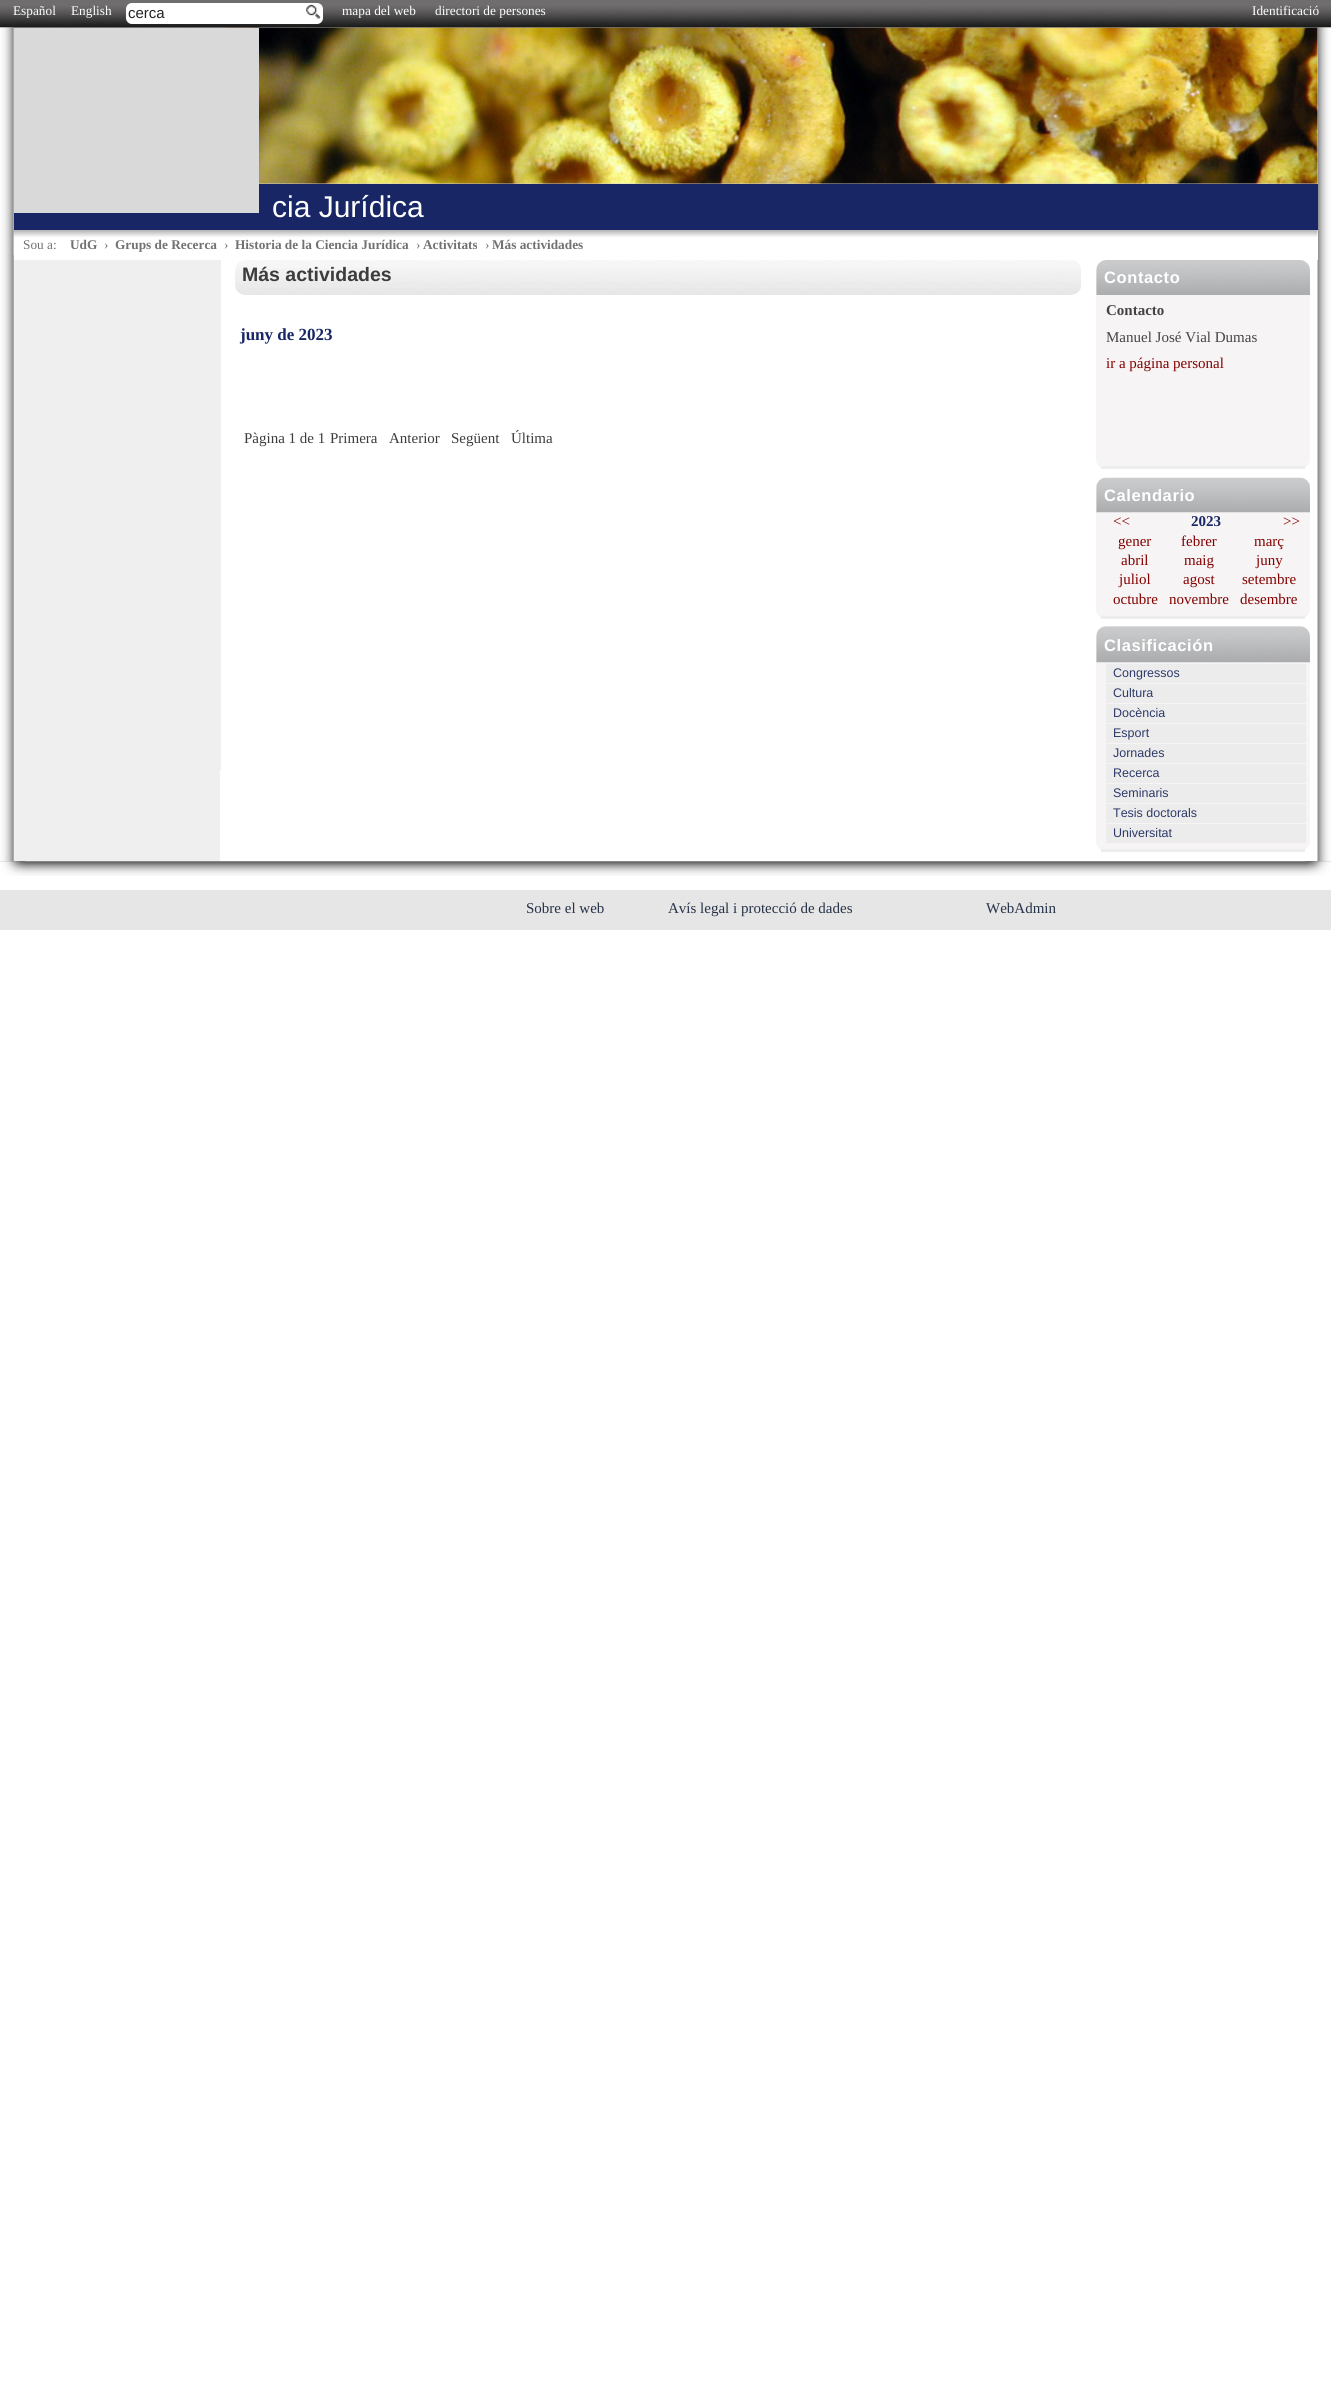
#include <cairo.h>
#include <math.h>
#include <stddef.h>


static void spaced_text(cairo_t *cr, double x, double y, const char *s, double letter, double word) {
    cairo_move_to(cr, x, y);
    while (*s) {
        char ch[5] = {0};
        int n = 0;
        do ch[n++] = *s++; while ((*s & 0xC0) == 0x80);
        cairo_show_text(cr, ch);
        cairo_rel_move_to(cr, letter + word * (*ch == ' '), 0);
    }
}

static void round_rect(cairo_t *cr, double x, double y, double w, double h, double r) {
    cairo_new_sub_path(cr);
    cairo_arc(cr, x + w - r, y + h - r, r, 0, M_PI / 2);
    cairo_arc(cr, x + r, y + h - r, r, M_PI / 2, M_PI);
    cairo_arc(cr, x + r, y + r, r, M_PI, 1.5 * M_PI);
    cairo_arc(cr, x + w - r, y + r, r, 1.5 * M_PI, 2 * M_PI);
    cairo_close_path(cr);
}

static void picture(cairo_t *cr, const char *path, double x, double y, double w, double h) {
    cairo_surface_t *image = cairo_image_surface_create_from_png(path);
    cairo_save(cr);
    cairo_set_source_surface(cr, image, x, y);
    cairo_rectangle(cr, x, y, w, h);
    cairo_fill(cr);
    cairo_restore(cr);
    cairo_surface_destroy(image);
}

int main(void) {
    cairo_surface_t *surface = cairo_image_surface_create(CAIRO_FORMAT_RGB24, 1331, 2404);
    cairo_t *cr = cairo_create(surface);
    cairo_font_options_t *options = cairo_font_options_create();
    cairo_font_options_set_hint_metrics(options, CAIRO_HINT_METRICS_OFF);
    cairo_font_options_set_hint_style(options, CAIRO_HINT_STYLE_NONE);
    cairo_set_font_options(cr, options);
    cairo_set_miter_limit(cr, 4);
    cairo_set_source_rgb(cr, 1, 1, 1);
    cairo_paint(cr);
    cairo_set_source_rgb(cr, 0.8, 0.8, 0.8);
    cairo_rectangle(cr, 0, 27, 1331, 1);
    cairo_fill(cr);
    picture(cr, "img1.png", 0, 0, 1331, 28);
    cairo_select_font_face(cr, "Liberation Serif", CAIRO_FONT_SLANT_NORMAL, CAIRO_FONT_WEIGHT_NORMAL);
    cairo_set_font_size(cr, 13.3);
    cairo_set_source_rgb(cr, 1, 1, 1);
    cairo_move_to(cr, 13, 15);
    cairo_show_text(cr, "Español");
    cairo_move_to(cr, 71, 15);
    cairo_show_text(cr, "English");
    round_rect(cr, 126, 3, 197, 21, 6);
    cairo_fill(cr);
    picture(cr, "img2.png", 306, 4, 15, 15);
    cairo_select_font_face(cr, "Liberation Sans", CAIRO_FONT_SLANT_NORMAL, CAIRO_FONT_WEIGHT_NORMAL);
    cairo_set_font_size(cr, 15);
    cairo_set_source_rgb(cr, 0.133, 0.133, 0.133);
    cairo_move_to(cr, 128, 18);
    cairo_show_text(cr, "cerca");
    cairo_select_font_face(cr, "Liberation Serif", CAIRO_FONT_SLANT_NORMAL, CAIRO_FONT_WEIGHT_NORMAL);
    cairo_set_font_size(cr, 13.3);
    cairo_set_source_rgb(cr, 1, 1, 1);
    cairo_move_to(cr, 342, 15);
    cairo_show_text(cr, "mapa del web");
    cairo_move_to(cr, 435, 15);
    cairo_show_text(cr, "directori de persones");
    cairo_move_to(cr, 1252, 15);
    cairo_show_text(cr, "Identificació");
    picture(cr, "img3.png", 0, 861, 1331, 15);
    picture(cr, "img4.png", 0, 861, 25, 15);
    picture(cr, "img5.png", 1306, 861, 25, 15);
    picture(cr, "img6.png", 0, 27, 14, 835);
    picture(cr, "img7.png", 1317, 27, 14, 835);
    cairo_set_source_rgb(cr, 0.851, 0.851, 0.851);
    cairo_rectangle(cr, 259, 28, 1059, 156);
    cairo_fill(cr);
    picture(cr, "img8.png", 227, 27, 1091, 157);
    cairo_set_source_rgb(cr, 0.094, 0.149, 0.396);
    cairo_rectangle(cr, 14, 184, 1304, 46);
    cairo_fill(cr);
    cairo_set_source_rgb(cr, 0.851, 0.851, 0.851);
    cairo_rectangle(cr, 14, 28, 245, 185);
    cairo_fill(cr);
    cairo_select_font_face(cr, "Liberation Sans", CAIRO_FONT_SLANT_NORMAL, CAIRO_FONT_WEIGHT_NORMAL);
    cairo_set_font_size(cr, 30);
    cairo_set_source_rgb(cr, 1, 1, 1);
    cairo_move_to(cr, 272, 217);
    cairo_show_text(cr, "cia Jurídica");
    cairo_rectangle(cr, 1317, 230, 1, 30);
    cairo_fill(cr);
    picture(cr, "img9.png", 13, 230, 1305, 25);
    cairo_select_font_face(cr, "Liberation Serif", CAIRO_FONT_SLANT_NORMAL, CAIRO_FONT_WEIGHT_NORMAL);
    cairo_set_font_size(cr, 13.3);
    cairo_set_source_rgb(cr, 0.443, 0.443, 0.443);
    cairo_move_to(cr, 23, 249);
    cairo_show_text(cr, "Sou a:");
    cairo_select_font_face(cr, "Liberation Serif", CAIRO_FONT_SLANT_NORMAL, CAIRO_FONT_WEIGHT_BOLD);
    cairo_move_to(cr, 70, 249);
    cairo_show_text(cr, "UdG");
    cairo_select_font_face(cr, "Liberation Serif", CAIRO_FONT_SLANT_NORMAL, CAIRO_FONT_WEIGHT_NORMAL);
    cairo_move_to(cr, 104, 249);
    cairo_show_text(cr, "›");
    cairo_select_font_face(cr, "Liberation Serif", CAIRO_FONT_SLANT_NORMAL, CAIRO_FONT_WEIGHT_BOLD);
    cairo_move_to(cr, 115, 249);
    cairo_show_text(cr, "Grups de Recerca");
    cairo_select_font_face(cr, "Liberation Serif", CAIRO_FONT_SLANT_NORMAL, CAIRO_FONT_WEIGHT_NORMAL);
    cairo_move_to(cr, 224, 249);
    cairo_show_text(cr, "›");
    cairo_select_font_face(cr, "Liberation Serif", CAIRO_FONT_SLANT_NORMAL, CAIRO_FONT_WEIGHT_BOLD);
    cairo_move_to(cr, 235, 249);
    cairo_show_text(cr, "Historia de la Ciencia Jurídica");
    cairo_select_font_face(cr, "Liberation Serif", CAIRO_FONT_SLANT_NORMAL, CAIRO_FONT_WEIGHT_NORMAL);
    cairo_move_to(cr, 416, 249);
    cairo_show_text(cr, "›");
    cairo_select_font_face(cr, "Liberation Serif", CAIRO_FONT_SLANT_NORMAL, CAIRO_FONT_WEIGHT_BOLD);
    cairo_move_to(cr, 423, 249);
    cairo_show_text(cr, "Activitats");
    cairo_select_font_face(cr, "Liberation Serif", CAIRO_FONT_SLANT_NORMAL, CAIRO_FONT_WEIGHT_NORMAL);
    cairo_move_to(cr, 485, 249);
    cairo_show_text(cr, "›");
    cairo_select_font_face(cr, "Liberation Serif", CAIRO_FONT_SLANT_NORMAL, CAIRO_FONT_WEIGHT_BOLD);
    cairo_move_to(cr, 492, 249);
    cairo_show_text(cr, "Más actividades");
    cairo_set_source_rgb(cr, 0.937, 0.937, 0.937);
    cairo_rectangle(cr, 14, 260, 206, 601);
    cairo_fill(cr);
    cairo_rectangle(cr, 220, 260, 1, 510);
    cairo_fill(cr);
    picture(cr, "img10.png", 235, 260, 846, 35);
    cairo_select_font_face(cr, "Liberation Sans", CAIRO_FONT_SLANT_NORMAL, CAIRO_FONT_WEIGHT_BOLD);
    cairo_set_font_size(cr, 19.5);
    cairo_set_source_rgb(cr, 0.235, 0.235, 0.235);
    cairo_move_to(cr, 242, 281);
    cairo_show_text(cr, "Más actividades");
    cairo_select_font_face(cr, "Liberation Serif", CAIRO_FONT_SLANT_NORMAL, CAIRO_FONT_WEIGHT_BOLD);
    cairo_set_font_size(cr, 17);
    cairo_set_source_rgb(cr, 0.094, 0.149, 0.396);
    cairo_move_to(cr, 240, 340);
    cairo_show_text(cr, "juny de 2023");
    cairo_select_font_face(cr, "Liberation Serif", CAIRO_FONT_SLANT_NORMAL, CAIRO_FONT_WEIGHT_NORMAL);
    cairo_set_font_size(cr, 15);
    cairo_set_source_rgb(cr, 0.235, 0.235, 0.235);
    cairo_move_to(cr, 244, 443);
    cairo_show_text(cr, "Pàgina 1 de 1");
    cairo_move_to(cr, 330, 443);
    cairo_show_text(cr, "Primera");
    cairo_move_to(cr, 389, 443);
    cairo_show_text(cr, "Anterior");
    cairo_move_to(cr, 451, 443);
    cairo_show_text(cr, "Següent");
    cairo_move_to(cr, 511, 443);
    cairo_show_text(cr, "Última");
    cairo_set_source_rgb(cr, 0.961, 0.957, 0.957);
    round_rect(cr, 1096, 260, 214, 209, 10);
    cairo_fill(cr);
    cairo_set_source_rgb(cr, 0.929, 0.929, 0.929);
    cairo_rectangle(cr, 1101, 466, 204, 3);
    cairo_fill(cr);
    picture(cr, "img11.png", 1096, 260, 214, 35);
    cairo_select_font_face(cr, "Liberation Sans", CAIRO_FONT_SLANT_NORMAL, CAIRO_FONT_WEIGHT_BOLD);
    cairo_set_font_size(cr, 16.5);
    cairo_set_source_rgb(cr, 1, 1, 1);
    spaced_text(cr, 1104, 283, "Contacto", 0.6, 0);
    cairo_select_font_face(cr, "Liberation Serif", CAIRO_FONT_SLANT_NORMAL, CAIRO_FONT_WEIGHT_BOLD);
    cairo_set_font_size(cr, 15);
    cairo_set_source_rgb(cr, 0.267, 0.267, 0.267);
    cairo_move_to(cr, 1106, 315);
    cairo_show_text(cr, "Contacto");
    cairo_select_font_face(cr, "Liberation Serif", CAIRO_FONT_SLANT_NORMAL, CAIRO_FONT_WEIGHT_NORMAL);
    cairo_move_to(cr, 1106, 342);
    cairo_show_text(cr, "Manuel José Vial Dumas");
    cairo_set_source_rgb(cr, 0.518, 0, 0);
    cairo_move_to(cr, 1106, 368);
    cairo_show_text(cr, "ir a página personal");
    cairo_set_source_rgb(cr, 0.961, 0.957, 0.957);
    round_rect(cr, 1096, 478, 214, 141, 10);
    cairo_fill(cr);
    cairo_set_source_rgb(cr, 0.929, 0.929, 0.929);
    cairo_rectangle(cr, 1101, 616, 204, 3);
    cairo_fill(cr);
    picture(cr, "img12.png", 1096, 477, 214, 36);
    cairo_select_font_face(cr, "Liberation Sans", CAIRO_FONT_SLANT_NORMAL, CAIRO_FONT_WEIGHT_BOLD);
    cairo_set_font_size(cr, 16.5);
    cairo_set_source_rgb(cr, 1, 1, 1);
    spaced_text(cr, 1104, 501, "Calendario", 0.6, 0);
    cairo_select_font_face(cr, "Liberation Serif", CAIRO_FONT_SLANT_NORMAL, CAIRO_FONT_WEIGHT_NORMAL);
    cairo_set_font_size(cr, 15);
    cairo_set_source_rgb(cr, 0.518, 0, 0);
    cairo_move_to(cr, 1113, 526);
    cairo_show_text(cr, "<<");
    cairo_select_font_face(cr, "Liberation Serif", CAIRO_FONT_SLANT_NORMAL, CAIRO_FONT_WEIGHT_BOLD);
    cairo_set_source_rgb(cr, 0.094, 0.149, 0.396);
    cairo_move_to(cr, 1191, 526);
    cairo_show_text(cr, "2023");
    cairo_select_font_face(cr, "Liberation Serif", CAIRO_FONT_SLANT_NORMAL, CAIRO_FONT_WEIGHT_NORMAL);
    cairo_set_source_rgb(cr, 0.518, 0, 0);
    cairo_move_to(cr, 1283, 526);
    cairo_show_text(cr, ">>");
    cairo_move_to(cr, 1118, 546);
    cairo_show_text(cr, "gener");
    cairo_move_to(cr, 1181, 546);
    cairo_show_text(cr, "febrer");
    cairo_move_to(cr, 1254, 546);
    cairo_show_text(cr, "març");
    cairo_move_to(cr, 1121, 565);
    cairo_show_text(cr, "abril");
    cairo_move_to(cr, 1184, 565);
    cairo_show_text(cr, "maig");
    cairo_move_to(cr, 1256, 565);
    cairo_show_text(cr, "juny");
    cairo_move_to(cr, 1119, 584);
    cairo_show_text(cr, "juliol");
    cairo_move_to(cr, 1183, 584);
    cairo_show_text(cr, "agost");
    cairo_move_to(cr, 1242, 584);
    cairo_show_text(cr, "setembre");
    cairo_move_to(cr, 1113, 604);
    cairo_show_text(cr, "octubre");
    cairo_move_to(cr, 1169, 604);
    cairo_show_text(cr, "novembre");
    cairo_move_to(cr, 1240, 604);
    cairo_show_text(cr, "desembre");
    cairo_set_source_rgb(cr, 0.961, 0.957, 0.957);
    round_rect(cr, 1096, 626, 214, 225, 10);
    cairo_fill(cr);
    cairo_set_source_rgb(cr, 0.929, 0.929, 0.929);
    cairo_rectangle(cr, 1101, 849, 204, 3);
    cairo_fill(cr);
    picture(cr, "img13.png", 1096, 626, 214, 37);
    cairo_select_font_face(cr, "Liberation Sans", CAIRO_FONT_SLANT_NORMAL, CAIRO_FONT_WEIGHT_BOLD);
    cairo_set_font_size(cr, 16.5);
    cairo_set_source_rgb(cr, 1, 1, 1);
    spaced_text(cr, 1104, 651, "Clasificación", 0.6, 0);
    cairo_set_source_rgb(cr, 0.922, 0.922, 0.922);
    cairo_rectangle(cr, 1106, 664, 200, 19);
    cairo_fill(cr);
    cairo_select_font_face(cr, "Liberation Sans", CAIRO_FONT_SLANT_NORMAL, CAIRO_FONT_WEIGHT_NORMAL);
    cairo_set_font_size(cr, 12.5);
    cairo_set_source_rgb(cr, 0.18, 0.227, 0.412);
    cairo_move_to(cr, 1113, 677);
    cairo_show_text(cr, "Congressos");
    cairo_set_source_rgb(cr, 0.922, 0.922, 0.922);
    cairo_rectangle(cr, 1106, 684, 200, 19);
    cairo_fill(cr);
    cairo_set_source_rgb(cr, 0.18, 0.227, 0.412);
    cairo_move_to(cr, 1113, 697);
    cairo_show_text(cr, "Cultura");
    cairo_set_source_rgb(cr, 0.922, 0.922, 0.922);
    cairo_rectangle(cr, 1106, 704, 200, 19);
    cairo_fill(cr);
    cairo_set_source_rgb(cr, 0.18, 0.227, 0.412);
    cairo_move_to(cr, 1113, 717);
    cairo_show_text(cr, "Docència");
    cairo_set_source_rgb(cr, 0.922, 0.922, 0.922);
    cairo_rectangle(cr, 1106, 724, 200, 19);
    cairo_fill(cr);
    cairo_set_source_rgb(cr, 0.18, 0.227, 0.412);
    cairo_move_to(cr, 1113, 737);
    cairo_show_text(cr, "Esport");
    cairo_set_source_rgb(cr, 0.922, 0.922, 0.922);
    cairo_rectangle(cr, 1106, 744, 200, 19);
    cairo_fill(cr);
    cairo_set_source_rgb(cr, 0.18, 0.227, 0.412);
    cairo_move_to(cr, 1113, 757);
    cairo_show_text(cr, "Jornades");
    cairo_set_source_rgb(cr, 0.922, 0.922, 0.922);
    cairo_rectangle(cr, 1106, 764, 200, 19);
    cairo_fill(cr);
    cairo_set_source_rgb(cr, 0.18, 0.227, 0.412);
    cairo_move_to(cr, 1113, 777);
    cairo_show_text(cr, "Recerca");
    cairo_set_source_rgb(cr, 0.922, 0.922, 0.922);
    cairo_rectangle(cr, 1106, 784, 200, 19);
    cairo_fill(cr);
    cairo_set_source_rgb(cr, 0.18, 0.227, 0.412);
    cairo_move_to(cr, 1113, 797);
    cairo_show_text(cr, "Seminaris");
    cairo_set_source_rgb(cr, 0.922, 0.922, 0.922);
    cairo_rectangle(cr, 1106, 804, 200, 19);
    cairo_fill(cr);
    cairo_set_source_rgb(cr, 0.18, 0.227, 0.412);
    cairo_move_to(cr, 1113, 817);
    cairo_show_text(cr, "Tesis doctorals");
    cairo_set_source_rgb(cr, 0.922, 0.922, 0.922);
    cairo_rectangle(cr, 1106, 824, 200, 19);
    cairo_fill(cr);
    cairo_set_source_rgb(cr, 0.18, 0.227, 0.412);
    cairo_move_to(cr, 1113, 837);
    cairo_show_text(cr, "Universitat");
    cairo_set_source_rgb(cr, 0.902, 0.902, 0.902);
    cairo_rectangle(cr, 0, 890, 1331, 40);
    cairo_fill(cr);
    cairo_select_font_face(cr, "Liberation Serif", CAIRO_FONT_SLANT_NORMAL, CAIRO_FONT_WEIGHT_NORMAL);
    cairo_set_font_size(cr, 15);
    cairo_set_source_rgb(cr, 0.149, 0.196, 0.282);
    cairo_move_to(cr, 526, 913);
    cairo_show_text(cr, "Sobre el web");
    cairo_move_to(cr, 668, 913);
    cairo_show_text(cr, "Avís legal i protecció de dades");
    cairo_move_to(cr, 986, 913);
    cairo_show_text(cr, "WebAdmin");
    cairo_surface_write_to_png(surface, "page.png");
    cairo_font_options_destroy(options);
    cairo_destroy(cr);
    cairo_surface_destroy(surface);
    return 0;
}
